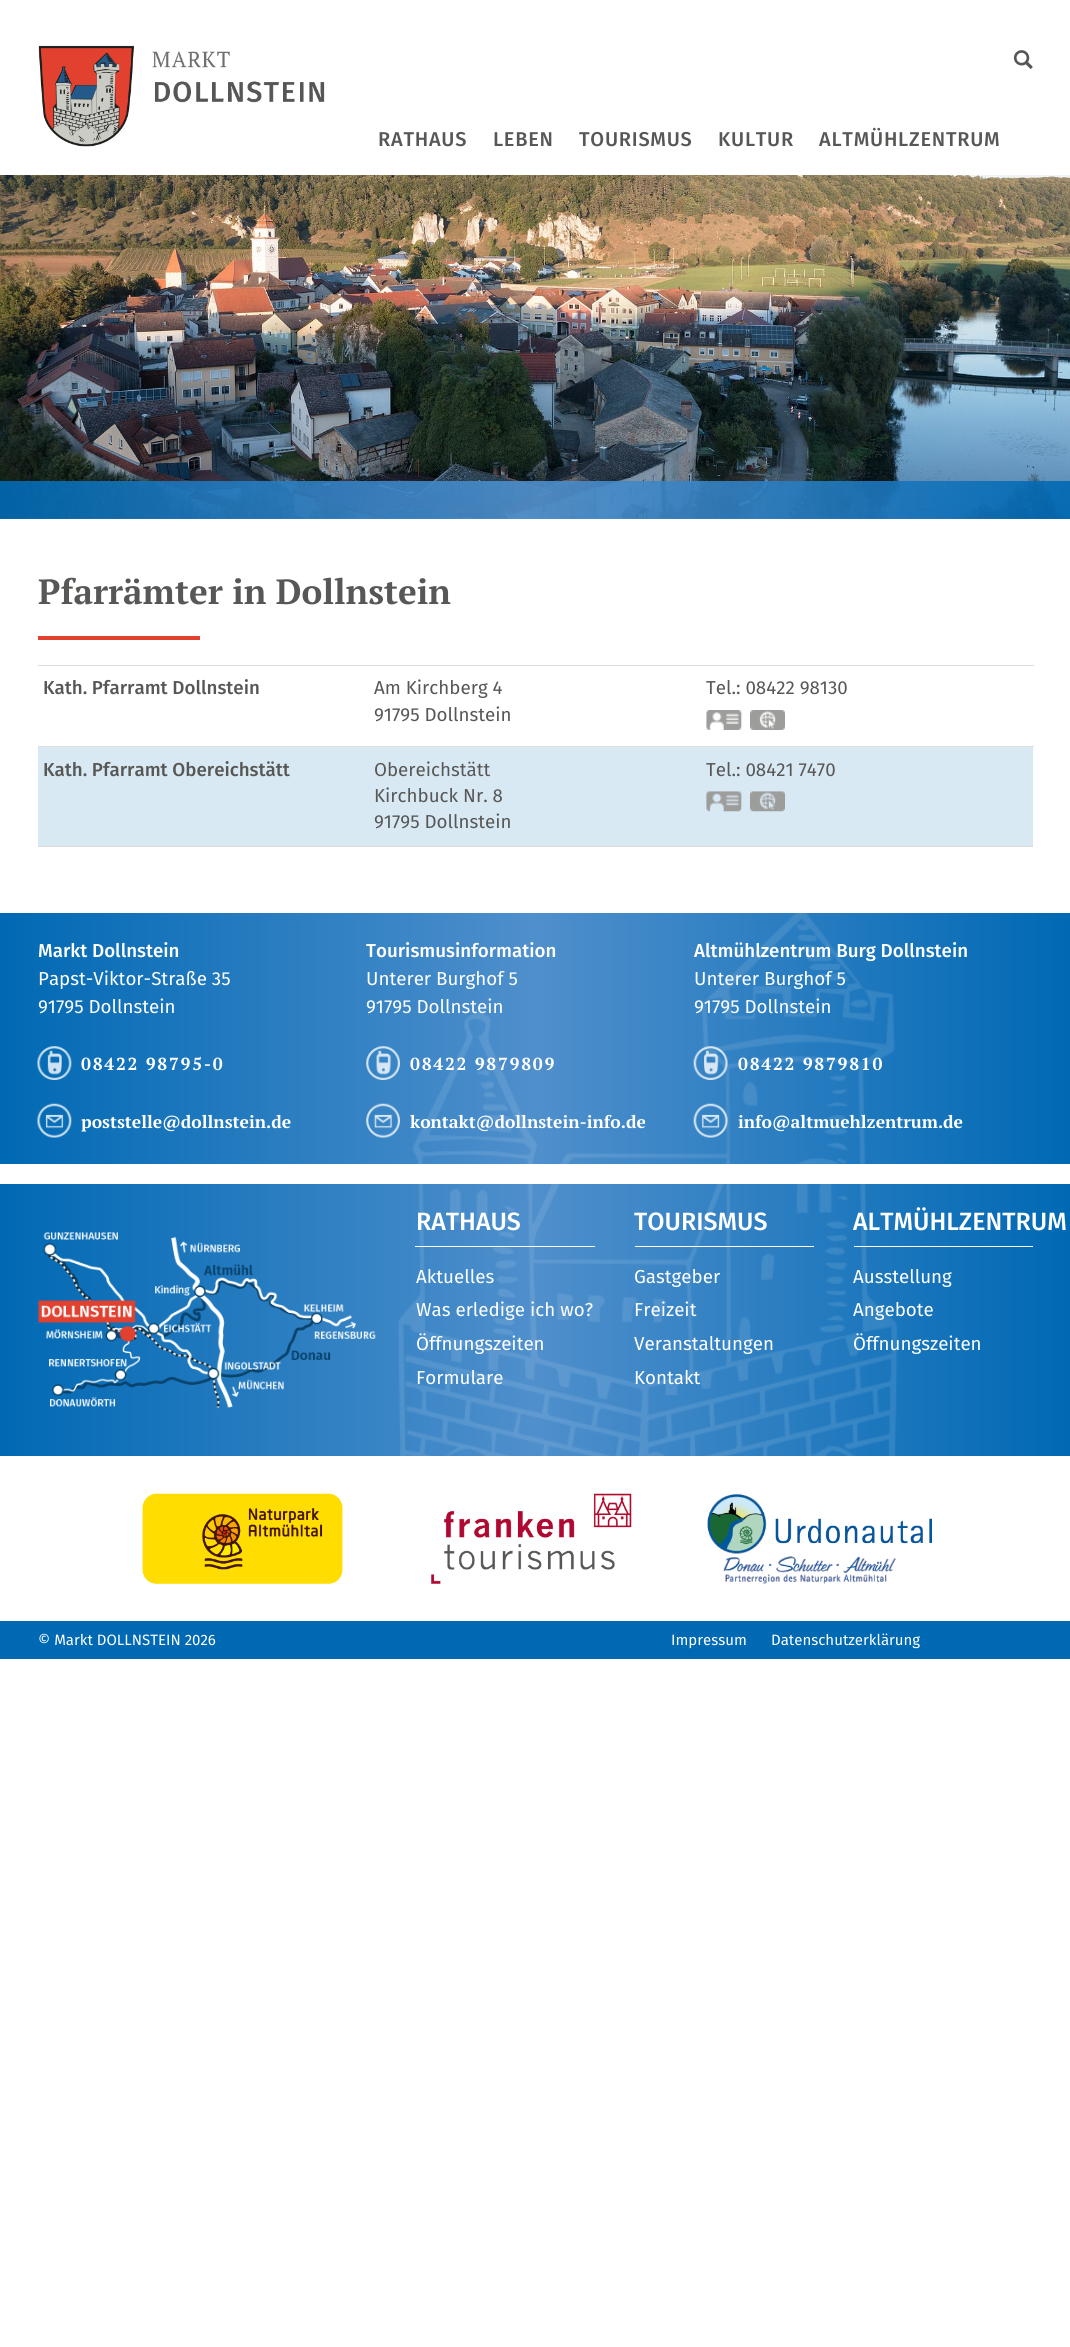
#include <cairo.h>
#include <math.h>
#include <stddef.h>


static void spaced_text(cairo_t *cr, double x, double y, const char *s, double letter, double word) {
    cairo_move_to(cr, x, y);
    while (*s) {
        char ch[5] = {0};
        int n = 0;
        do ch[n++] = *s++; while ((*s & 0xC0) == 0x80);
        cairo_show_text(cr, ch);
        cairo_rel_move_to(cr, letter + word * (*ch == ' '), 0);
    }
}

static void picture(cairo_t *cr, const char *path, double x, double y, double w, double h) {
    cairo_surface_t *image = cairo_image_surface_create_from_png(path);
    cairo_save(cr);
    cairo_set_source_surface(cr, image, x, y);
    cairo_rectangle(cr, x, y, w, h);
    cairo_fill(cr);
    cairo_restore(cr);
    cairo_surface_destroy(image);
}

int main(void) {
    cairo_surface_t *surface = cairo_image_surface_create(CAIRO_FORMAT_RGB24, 1070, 2347);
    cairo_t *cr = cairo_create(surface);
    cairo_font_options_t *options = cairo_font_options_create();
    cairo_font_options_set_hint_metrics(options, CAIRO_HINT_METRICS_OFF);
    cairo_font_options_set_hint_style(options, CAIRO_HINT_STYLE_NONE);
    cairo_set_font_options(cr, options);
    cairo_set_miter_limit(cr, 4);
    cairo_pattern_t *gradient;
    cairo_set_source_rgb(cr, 1, 1, 1);
    cairo_paint(cr);
    picture(cr, "img1.png", 38, 45, 287, 102);
    picture(cr, "img2.png", 1013, 50, 20, 19);
    cairo_select_font_face(cr, "Fira Sans Medium", CAIRO_FONT_SLANT_NORMAL, CAIRO_FONT_WEIGHT_NORMAL);
    cairo_set_font_size(cr, 20);
    cairo_set_source_rgb(cr, 0.341, 0.341, 0.337);
    spaced_text(cr, 378, 146, "RATHAUS", 0.75, 0);
    spaced_text(cr, 493, 146, "LEBEN", 0.75, 0);
    spaced_text(cr, 579, 146, "TOURISMUS", 0.75, 0);
    spaced_text(cr, 718, 146, "KULTUR", 0.75, 0);
    spaced_text(cr, 819, 146, "ALTMÜHLZENTRUM", 0.75, 0);
    picture(cr, "img3.png", 0, 175, 1070, 344);
    gradient = cairo_pattern_create_linear(0, 500, 1070, 500);
    cairo_pattern_add_color_stop_rgba(gradient, 0, 0, 0.412, 0.706, 0.9);
    cairo_pattern_add_color_stop_rgba(gradient, 0.5, 0.31, 0.561, 0.8, 0.9);
    cairo_pattern_add_color_stop_rgba(gradient, 1, 0, 0.412, 0.706, 0.9);
    cairo_set_source(cr, gradient);
    cairo_pattern_destroy(gradient);
    cairo_rectangle(cr, 0, 481, 1070, 38);
    cairo_fill(cr);
    cairo_select_font_face(cr, "PT Serif", CAIRO_FONT_SLANT_NORMAL, CAIRO_FONT_WEIGHT_BOLD);
    cairo_set_font_size(cr, 35);
    cairo_set_source_rgb(cr, 0.341, 0.341, 0.337);
    cairo_move_to(cr, 38, 604);
    cairo_show_text(cr, "Pfarrämter in Dollnstein");
    cairo_set_source_rgb(cr, 0.886, 0.255, 0.18);
    cairo_rectangle(cr, 38, 636, 162, 4);
    cairo_fill(cr);
    cairo_set_source_rgb(cr, 0.851, 0.851, 0.851);
    cairo_rectangle(cr, 38, 846, 995, 1);
    cairo_fill(cr);
    cairo_select_font_face(cr, "Fira Sans Medium", CAIRO_FONT_SLANT_NORMAL, CAIRO_FONT_WEIGHT_NORMAL);
    cairo_set_font_size(cr, 18.75);
    cairo_set_source_rgb(cr, 0.341, 0.341, 0.337);
    cairo_move_to(cr, 43, 694);
    cairo_show_text(cr, "Kath. Pfarramt Dollnstein");
    cairo_select_font_face(cr, "Fira Sans", CAIRO_FONT_SLANT_NORMAL, CAIRO_FONT_WEIGHT_NORMAL);
    cairo_move_to(cr, 374, 694);
    cairo_show_text(cr, "Am Kirchberg 4");
    cairo_move_to(cr, 374, 721);
    cairo_show_text(cr, "91795 Dollnstein");
    cairo_set_source_rgb(cr, 0.867, 0.867, 0.867);
    cairo_rectangle(cr, 38, 665, 996, 1);
    cairo_fill(cr);
    cairo_set_source_rgb(cr, 0.341, 0.341, 0.337);
    cairo_move_to(cr, 706, 694);
    cairo_show_text(cr, "Tel.: 08422 98130");
    picture(cr, "img4.png", 706, 710, 36, 20);
    picture(cr, "img5.png", 750, 710, 35, 20);
    cairo_set_source_rgb(cr, 0.851, 0.914, 0.957);
    cairo_rectangle(cr, 38, 747, 995, 99);
    cairo_fill(cr);
    cairo_select_font_face(cr, "Fira Sans Medium", CAIRO_FONT_SLANT_NORMAL, CAIRO_FONT_WEIGHT_NORMAL);
    cairo_set_source_rgb(cr, 0.341, 0.341, 0.337);
    cairo_move_to(cr, 43, 776);
    cairo_show_text(cr, "Kath. Pfarramt Obereichstätt");
    cairo_select_font_face(cr, "Fira Sans", CAIRO_FONT_SLANT_NORMAL, CAIRO_FONT_WEIGHT_NORMAL);
    cairo_move_to(cr, 374, 776);
    cairo_show_text(cr, "Obereichstätt");
    cairo_move_to(cr, 374, 802);
    cairo_show_text(cr, "Kirchbuck Nr. 8");
    cairo_move_to(cr, 374, 828);
    cairo_show_text(cr, "91795 Dollnstein");
    cairo_set_source_rgb(cr, 0.867, 0.867, 0.867);
    cairo_rectangle(cr, 38, 746, 996, 1);
    cairo_fill(cr);
    cairo_set_source_rgb(cr, 0.341, 0.341, 0.337);
    cairo_move_to(cr, 706, 776);
    cairo_show_text(cr, "Tel.: 08421 7470");
    picture(cr, "img6.png", 706, 791, 36, 21);
    picture(cr, "img7.png", 750, 791, 35, 21);
    gradient = cairo_pattern_create_linear(0, 1184, 1070, 1184);
    cairo_pattern_add_color_stop_rgba(gradient, 0, 0, 0.412, 0.706, 1);
    cairo_pattern_add_color_stop_rgba(gradient, 0.5, 0.31, 0.561, 0.8, 1);
    cairo_pattern_add_color_stop_rgba(gradient, 1, 0, 0.412, 0.706, 1);
    cairo_set_source(cr, gradient);
    cairo_pattern_destroy(gradient);
    cairo_rectangle(cr, 0, 913, 1070, 543);
    cairo_fill(cr);
    cairo_set_source_rgb(cr, 1, 1, 1);
    cairo_rectangle(cr, 0, 1164, 1070, 20);
    cairo_fill(cr);
    picture(cr, "img8.png", 398, 913, 500, 543);
    cairo_select_font_face(cr, "Fira Sans Medium", CAIRO_FONT_SLANT_NORMAL, CAIRO_FONT_WEIGHT_NORMAL);
    cairo_move_to(cr, 38, 957);
    cairo_show_text(cr, "Markt Dollnstein");
    cairo_select_font_face(cr, "Fira Sans", CAIRO_FONT_SLANT_NORMAL, CAIRO_FONT_WEIGHT_NORMAL);
    cairo_move_to(cr, 38, 985);
    cairo_show_text(cr, "Papst-Viktor-Straße 35");
    cairo_move_to(cr, 38, 1013);
    cairo_show_text(cr, "91795 Dollnstein");
    picture(cr, "img9.png", 37, 1046, 35, 34);
    cairo_select_font_face(cr, "PT Serif", CAIRO_FONT_SLANT_NORMAL, CAIRO_FONT_WEIGHT_BOLD);
    cairo_set_font_size(cr, 17.5);
    spaced_text(cr, 81, 1070, "08422 98795-0", 1.75, 0);
    picture(cr, "img10.png", 37, 1103, 35, 35);
    cairo_move_to(cr, 81, 1128);
    cairo_show_text(cr, "poststelle@dollnstein.de");
    cairo_select_font_face(cr, "Fira Sans Medium", CAIRO_FONT_SLANT_NORMAL, CAIRO_FONT_WEIGHT_NORMAL);
    cairo_set_font_size(cr, 18.75);
    cairo_move_to(cr, 366, 957);
    cairo_show_text(cr, "Tourismusinformation");
    cairo_select_font_face(cr, "Fira Sans", CAIRO_FONT_SLANT_NORMAL, CAIRO_FONT_WEIGHT_NORMAL);
    cairo_move_to(cr, 366, 985);
    cairo_show_text(cr, "Unterer Burghof 5");
    cairo_move_to(cr, 366, 1013);
    cairo_show_text(cr, "91795 Dollnstein");
    picture(cr, "img11.png", 366, 1046, 34, 34);
    cairo_select_font_face(cr, "PT Serif", CAIRO_FONT_SLANT_NORMAL, CAIRO_FONT_WEIGHT_BOLD);
    cairo_set_font_size(cr, 17.5);
    spaced_text(cr, 410, 1070, "08422 9879809", 1.75, 0);
    picture(cr, "img12.png", 366, 1103, 34, 35);
    cairo_move_to(cr, 410, 1128);
    cairo_show_text(cr, "kontakt@dollnstein-info.de");
    cairo_select_font_face(cr, "Fira Sans Medium", CAIRO_FONT_SLANT_NORMAL, CAIRO_FONT_WEIGHT_NORMAL);
    cairo_set_font_size(cr, 18.75);
    cairo_move_to(cr, 694, 957);
    cairo_show_text(cr, "Altmühlzentrum Burg Dollnstein");
    cairo_select_font_face(cr, "Fira Sans", CAIRO_FONT_SLANT_NORMAL, CAIRO_FONT_WEIGHT_NORMAL);
    cairo_move_to(cr, 694, 985);
    cairo_show_text(cr, "Unterer Burghof 5");
    cairo_move_to(cr, 694, 1013);
    cairo_show_text(cr, "91795 Dollnstein");
    picture(cr, "img13.png", 693, 1046, 35, 34);
    cairo_select_font_face(cr, "PT Serif", CAIRO_FONT_SLANT_NORMAL, CAIRO_FONT_WEIGHT_BOLD);
    cairo_set_font_size(cr, 17.5);
    spaced_text(cr, 738, 1070, "08422 9879810", 1.75, 0);
    picture(cr, "img14.png", 693, 1103, 35, 35);
    cairo_move_to(cr, 738, 1128);
    cairo_show_text(cr, "info@altmuehlzentrum.de");
    picture(cr, "img15.png", 38, 1232, 338, 177);
    cairo_select_font_face(cr, "Fira Sans Medium", CAIRO_FONT_SLANT_NORMAL, CAIRO_FONT_WEIGHT_NORMAL);
    cairo_set_font_size(cr, 25);
    cairo_move_to(cr, 416, 1230);
    cairo_show_text(cr, "RATHAUS");
    cairo_rectangle(cr, 415, 1246, 180, 1);
    cairo_fill(cr);
    cairo_select_font_face(cr, "Fira Sans", CAIRO_FONT_SLANT_NORMAL, CAIRO_FONT_WEIGHT_NORMAL);
    cairo_set_font_size(cr, 18.75);
    cairo_move_to(cr, 416, 1283);
    cairo_show_text(cr, "Aktuelles");
    cairo_move_to(cr, 416, 1316);
    cairo_show_text(cr, "Was erledige ich wo?");
    cairo_move_to(cr, 416, 1350);
    cairo_show_text(cr, "Öffnungszeiten");
    cairo_move_to(cr, 416, 1384);
    cairo_show_text(cr, "Formulare");
    cairo_select_font_face(cr, "Fira Sans Medium", CAIRO_FONT_SLANT_NORMAL, CAIRO_FONT_WEIGHT_NORMAL);
    cairo_set_font_size(cr, 25);
    cairo_move_to(cr, 634, 1230);
    cairo_show_text(cr, "TOURISMUS");
    cairo_rectangle(cr, 635, 1246, 179, 1);
    cairo_fill(cr);
    cairo_select_font_face(cr, "Fira Sans", CAIRO_FONT_SLANT_NORMAL, CAIRO_FONT_WEIGHT_NORMAL);
    cairo_set_font_size(cr, 18.75);
    cairo_move_to(cr, 634, 1283);
    cairo_show_text(cr, "Gastgeber");
    cairo_move_to(cr, 634, 1316);
    cairo_show_text(cr, "Freizeit");
    cairo_move_to(cr, 634, 1350);
    cairo_show_text(cr, "Veranstaltungen");
    cairo_move_to(cr, 634, 1384);
    cairo_show_text(cr, "Kontakt");
    cairo_select_font_face(cr, "Fira Sans Medium", CAIRO_FONT_SLANT_NORMAL, CAIRO_FONT_WEIGHT_NORMAL);
    cairo_set_font_size(cr, 25);
    cairo_move_to(cr, 853, 1230);
    cairo_show_text(cr, "ALTMÜHLZENTRUM");
    cairo_rectangle(cr, 854, 1246, 179, 1);
    cairo_fill(cr);
    cairo_select_font_face(cr, "Fira Sans", CAIRO_FONT_SLANT_NORMAL, CAIRO_FONT_WEIGHT_NORMAL);
    cairo_set_font_size(cr, 18.75);
    cairo_move_to(cr, 853, 1283);
    cairo_show_text(cr, "Ausstellung");
    cairo_move_to(cr, 853, 1316);
    cairo_show_text(cr, "Angebote");
    cairo_move_to(cr, 853, 1350);
    cairo_show_text(cr, "Öffnungszeiten");
    picture(cr, "img16.png", 142, 1493, 201, 91);
    picture(cr, "img17.png", 431, 1493, 201, 91);
    picture(cr, "img18.png", 707, 1494, 225, 90);
    cairo_set_source_rgb(cr, 0, 0.412, 0.706);
    cairo_rectangle(cr, 0, 1621, 1070, 38);
    cairo_fill(cr);
    cairo_set_font_size(cr, 15);
    cairo_set_source_rgb(cr, 1, 1, 1);
    cairo_move_to(cr, 38, 1645);
    cairo_show_text(cr, "© Markt DOLLNSTEIN 2026");
    cairo_move_to(cr, 671, 1645);
    cairo_show_text(cr, "Impressum");
    cairo_move_to(cr, 771, 1645);
    cairo_show_text(cr, "Datenschutzerklärung");
    cairo_surface_write_to_png(surface, "page.png");
    cairo_font_options_destroy(options);
    cairo_destroy(cr);
    cairo_surface_destroy(surface);
    return 0;
}
